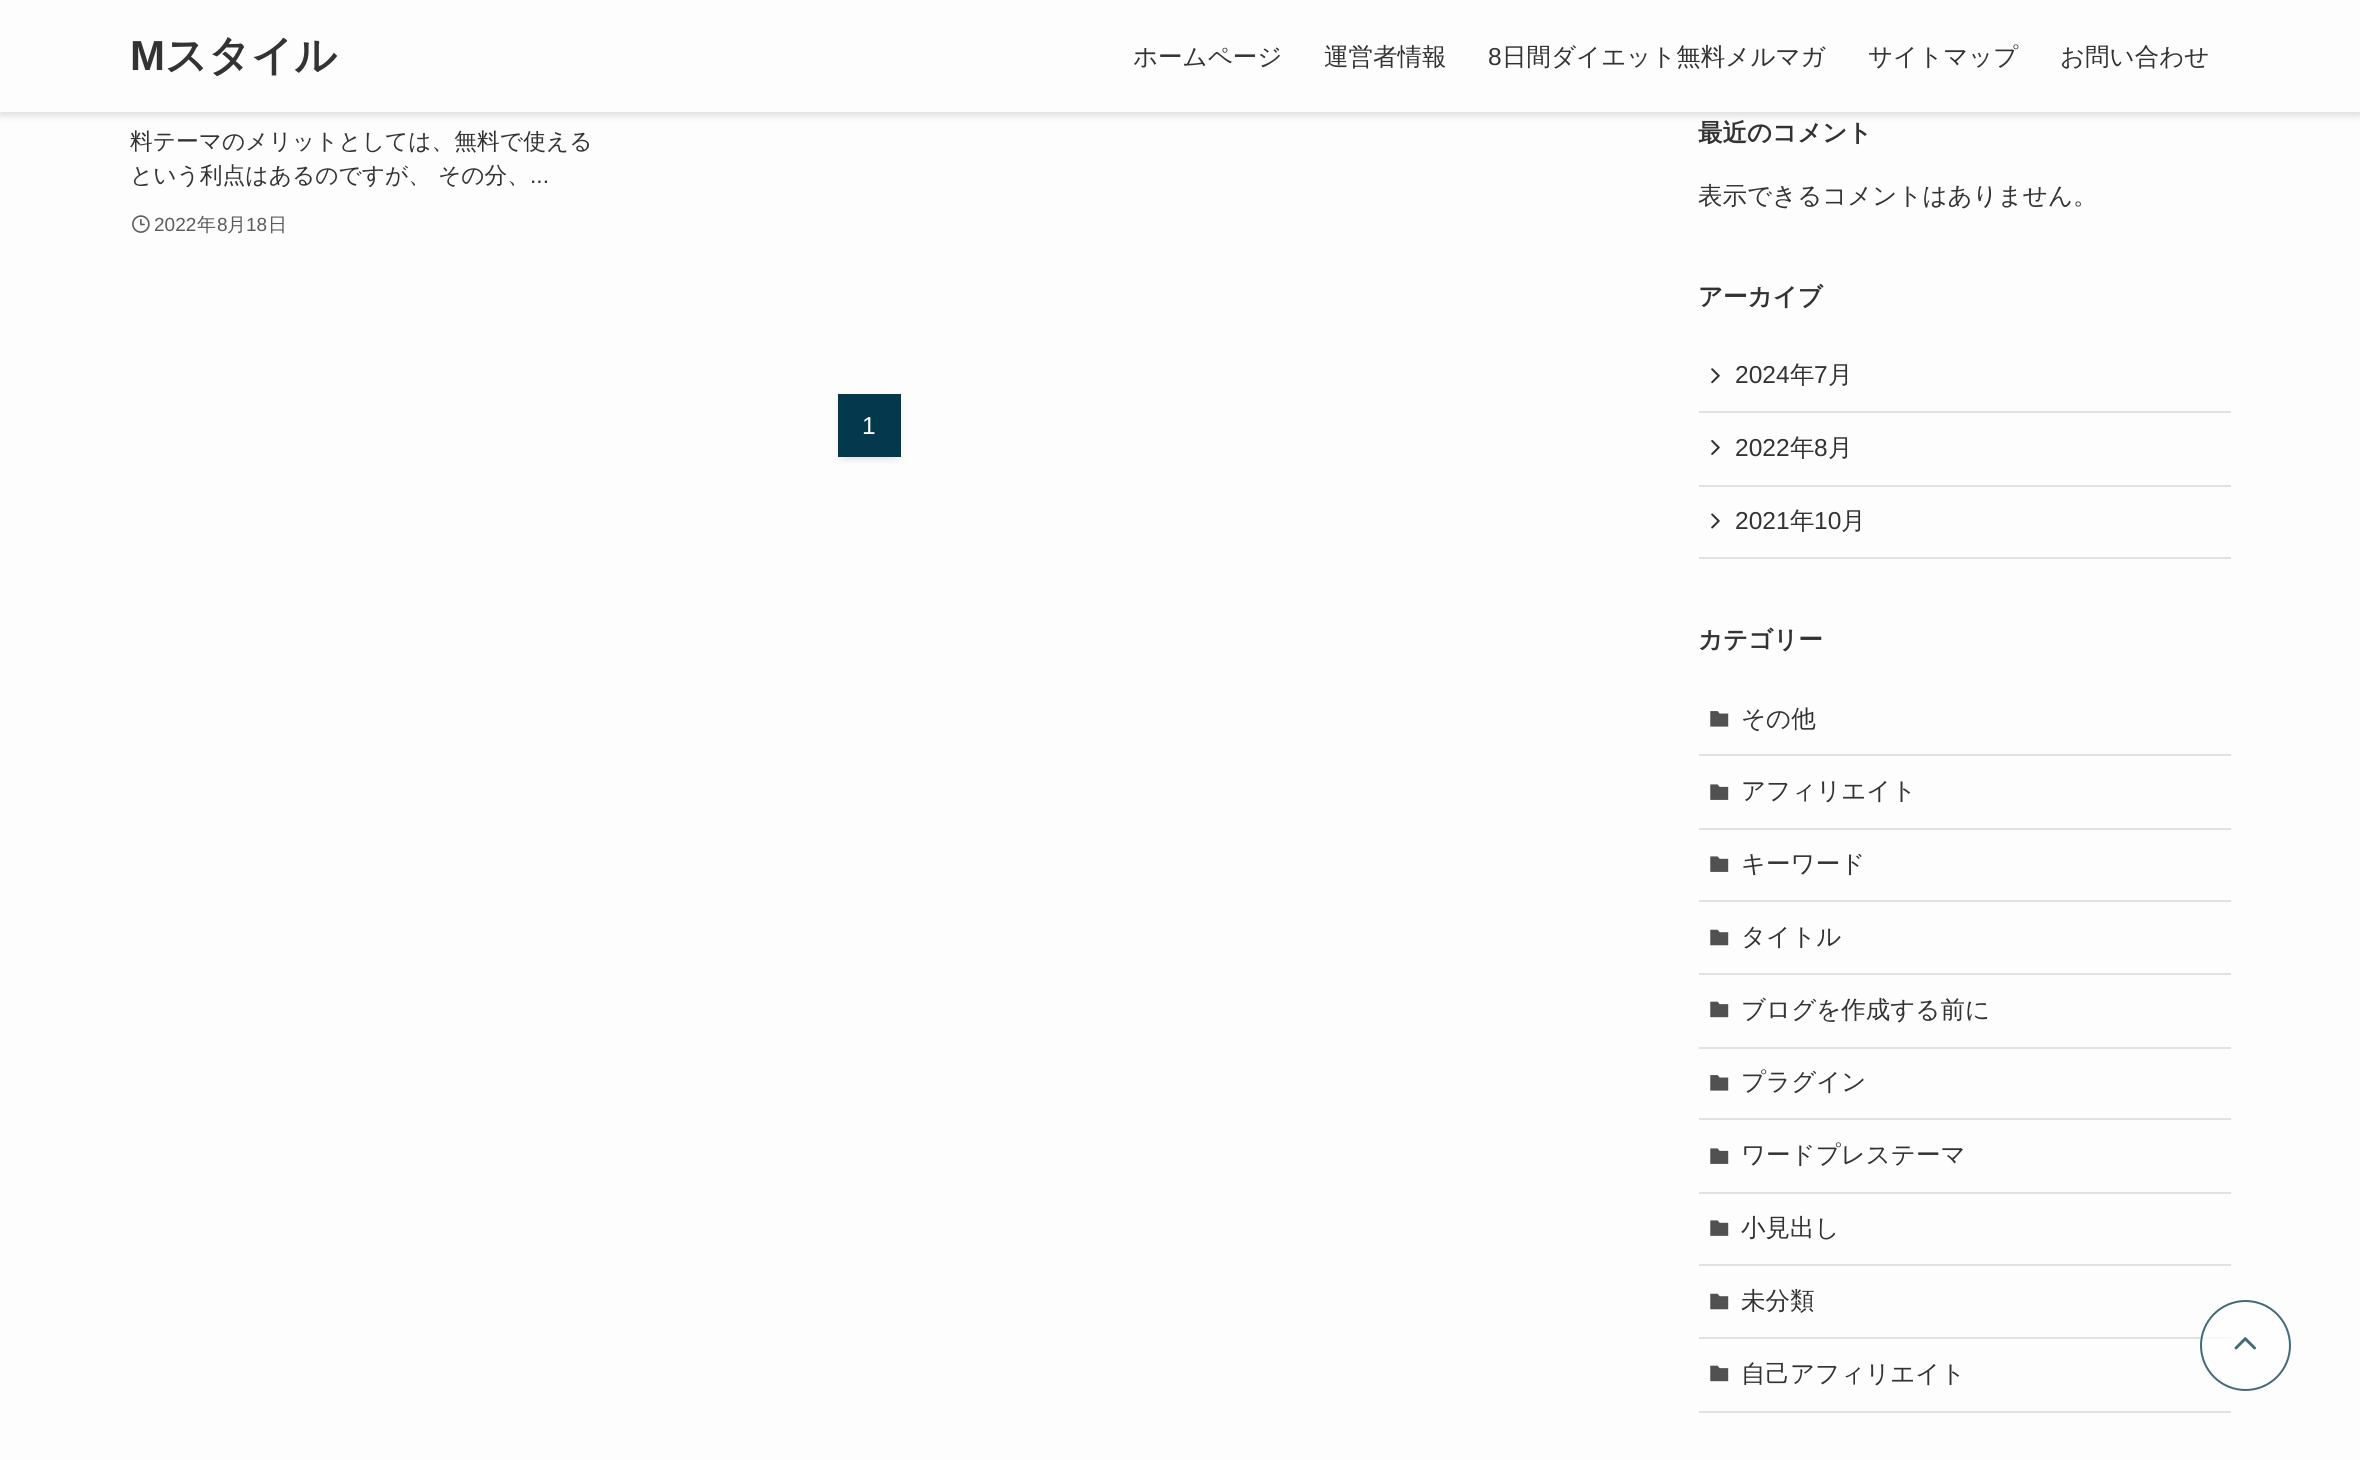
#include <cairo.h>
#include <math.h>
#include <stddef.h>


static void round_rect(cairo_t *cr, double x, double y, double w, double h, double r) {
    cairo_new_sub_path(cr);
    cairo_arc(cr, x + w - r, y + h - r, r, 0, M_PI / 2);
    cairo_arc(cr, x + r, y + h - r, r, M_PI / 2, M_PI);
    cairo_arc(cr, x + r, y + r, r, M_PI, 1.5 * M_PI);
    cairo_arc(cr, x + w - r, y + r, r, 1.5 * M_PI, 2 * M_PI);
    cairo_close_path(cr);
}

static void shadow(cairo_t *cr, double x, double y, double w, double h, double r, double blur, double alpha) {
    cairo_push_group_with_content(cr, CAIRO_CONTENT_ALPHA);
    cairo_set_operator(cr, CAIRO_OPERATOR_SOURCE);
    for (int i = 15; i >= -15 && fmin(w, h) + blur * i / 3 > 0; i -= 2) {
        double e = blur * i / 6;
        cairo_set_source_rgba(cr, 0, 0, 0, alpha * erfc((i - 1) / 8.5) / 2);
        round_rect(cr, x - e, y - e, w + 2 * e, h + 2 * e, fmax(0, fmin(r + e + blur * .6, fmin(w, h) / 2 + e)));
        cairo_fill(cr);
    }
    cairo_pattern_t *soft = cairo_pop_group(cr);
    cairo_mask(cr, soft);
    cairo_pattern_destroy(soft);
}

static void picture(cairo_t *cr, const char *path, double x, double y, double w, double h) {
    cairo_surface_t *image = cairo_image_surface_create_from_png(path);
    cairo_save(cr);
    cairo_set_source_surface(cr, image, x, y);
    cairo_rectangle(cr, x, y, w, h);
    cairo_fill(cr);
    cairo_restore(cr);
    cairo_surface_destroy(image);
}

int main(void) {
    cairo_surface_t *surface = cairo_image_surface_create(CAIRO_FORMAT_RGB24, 2360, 1460);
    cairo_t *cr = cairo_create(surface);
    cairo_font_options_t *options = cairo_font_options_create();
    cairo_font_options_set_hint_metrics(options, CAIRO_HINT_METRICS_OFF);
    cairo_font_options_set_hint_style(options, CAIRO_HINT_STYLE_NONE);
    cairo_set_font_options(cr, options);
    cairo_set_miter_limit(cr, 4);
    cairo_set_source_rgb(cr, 0.992, 0.992, 0.992);
    cairo_paint(cr);
    cairo_set_source_rgb(cr, 0, 0, 0);
    shadow(cr, 0, 4, 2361, 112, 0, 3.5, 0.12);
    cairo_set_source_rgb(cr, 0.992, 0.992, 0.992);
    cairo_rectangle(cr, 0, 0, 2360, 112);
    cairo_fill(cr);
    cairo_select_font_face(cr, "Liberation Sans", CAIRO_FONT_SLANT_NORMAL, CAIRO_FONT_WEIGHT_BOLD);
    cairo_set_font_size(cr, 42);
    cairo_set_source_rgb(cr, 0.2, 0.2, 0.2);
    cairo_move_to(cr, 130, 70);
    cairo_show_text(cr, "M");
    cairo_select_font_face(cr, "WenQuanYi Zen Hei", CAIRO_FONT_SLANT_NORMAL, CAIRO_FONT_WEIGHT_BOLD);
    cairo_move_to(cr, 165, 70);
    cairo_show_text(cr, "スタイル");
    cairo_select_font_face(cr, "WenQuanYi Zen Hei Medium", CAIRO_FONT_SLANT_NORMAL, CAIRO_FONT_WEIGHT_NORMAL);
    cairo_set_font_size(cr, 24.5);
    cairo_move_to(cr, 1133, 65);
    cairo_show_text(cr, "ホームページ");
    cairo_move_to(cr, 1324, 65);
    cairo_show_text(cr, "運営者情報");
    cairo_select_font_face(cr, "Liberation Sans", CAIRO_FONT_SLANT_NORMAL, CAIRO_FONT_WEIGHT_NORMAL);
    cairo_move_to(cr, 1488, 65);
    cairo_show_text(cr, "8");
    cairo_select_font_face(cr, "WenQuanYi Zen Hei Medium", CAIRO_FONT_SLANT_NORMAL, CAIRO_FONT_WEIGHT_NORMAL);
    cairo_move_to(cr, 1502, 65);
    cairo_show_text(cr, "日間ダイエット無料メルマガ");
    cairo_move_to(cr, 1868, 65);
    cairo_show_text(cr, "サイトマップ");
    cairo_move_to(cr, 2060, 65);
    cairo_show_text(cr, "お問い合わせ");
    cairo_set_font_size(cr, 22.75);
    cairo_move_to(cr, 130, 149);
    cairo_show_text(cr, "料テーマのメリットとしては、無料で使える");
    cairo_move_to(cr, 130, 183);
    cairo_show_text(cr, "という利点はあるのですが、 その分、");
    cairo_select_font_face(cr, "Liberation Sans", CAIRO_FONT_SLANT_NORMAL, CAIRO_FONT_WEIGHT_NORMAL);
    cairo_move_to(cr, 530, 183);
    cairo_show_text(cr, "...");
    picture(cr, "img1.png", 132, 215, 18, 18);
    cairo_set_font_size(cr, 19);
    cairo_set_source_rgb(cr, 0.357, 0.357, 0.357);
    cairo_move_to(cr, 154, 231);
    cairo_show_text(cr, "2022");
    cairo_select_font_face(cr, "WenQuanYi Zen Hei Medium", CAIRO_FONT_SLANT_NORMAL, CAIRO_FONT_WEIGHT_NORMAL);
    cairo_move_to(cr, 197, 231);
    cairo_show_text(cr, "年");
    cairo_select_font_face(cr, "Liberation Sans", CAIRO_FONT_SLANT_NORMAL, CAIRO_FONT_WEIGHT_NORMAL);
    cairo_move_to(cr, 217, 231);
    cairo_show_text(cr, "8");
    cairo_select_font_face(cr, "WenQuanYi Zen Hei Medium", CAIRO_FONT_SLANT_NORMAL, CAIRO_FONT_WEIGHT_NORMAL);
    cairo_move_to(cr, 227, 231);
    cairo_show_text(cr, "月");
    cairo_select_font_face(cr, "Liberation Sans", CAIRO_FONT_SLANT_NORMAL, CAIRO_FONT_WEIGHT_NORMAL);
    cairo_move_to(cr, 246, 231);
    cairo_show_text(cr, "18");
    cairo_select_font_face(cr, "WenQuanYi Zen Hei Medium", CAIRO_FONT_SLANT_NORMAL, CAIRO_FONT_WEIGHT_NORMAL);
    cairo_move_to(cr, 268, 231);
    cairo_show_text(cr, "日");
    cairo_set_source_rgb(cr, 0, 0, 0);
    shadow(cr, 845, 408, 49, 49, 0, 3.5, 0.1);
    shadow(cr, 838, 397, 63, 63, 0, 3.5, 0.05);
    cairo_set_source_rgb(cr, 0.016, 0.22, 0.298);
    cairo_rectangle(cr, 838, 394, 63, 63);
    cairo_fill(cr);
    cairo_select_font_face(cr, "Liberation Sans", CAIRO_FONT_SLANT_NORMAL, CAIRO_FONT_WEIGHT_NORMAL);
    cairo_set_font_size(cr, 24.5);
    cairo_set_source_rgb(cr, 1, 1, 1);
    cairo_move_to(cr, 862, 434);
    cairo_show_text(cr, "1");
    cairo_select_font_face(cr, "WenQuanYi Zen Hei", CAIRO_FONT_SLANT_NORMAL, CAIRO_FONT_WEIGHT_BOLD);
    cairo_set_source_rgb(cr, 0.2, 0.2, 0.2);
    cairo_move_to(cr, 1698, 141);
    cairo_show_text(cr, "最近のコメント");
    cairo_select_font_face(cr, "WenQuanYi Zen Hei Medium", CAIRO_FONT_SLANT_NORMAL, CAIRO_FONT_WEIGHT_NORMAL);
    cairo_move_to(cr, 1698, 204);
    cairo_show_text(cr, "表示できるコメントはありません。");
    cairo_select_font_face(cr, "WenQuanYi Zen Hei", CAIRO_FONT_SLANT_NORMAL, CAIRO_FONT_WEIGHT_BOLD);
    cairo_move_to(cr, 1698, 305);
    cairo_show_text(cr, "アーカイブ");
    cairo_set_source_rgb(cr, 0.886, 0.886, 0.886);
    cairo_rectangle(cr, 1699, 411, 532, 2);
    cairo_fill(cr);
    picture(cr, "img2.png", 1711, 368, 9, 16);
    cairo_select_font_face(cr, "Liberation Sans", CAIRO_FONT_SLANT_NORMAL, CAIRO_FONT_WEIGHT_NORMAL);
    cairo_set_source_rgb(cr, 0.2, 0.2, 0.2);
    cairo_move_to(cr, 1735, 383);
    cairo_show_text(cr, "2024");
    cairo_select_font_face(cr, "WenQuanYi Zen Hei Medium", CAIRO_FONT_SLANT_NORMAL, CAIRO_FONT_WEIGHT_NORMAL);
    cairo_move_to(cr, 1790, 383);
    cairo_show_text(cr, "年");
    cairo_select_font_face(cr, "Liberation Sans", CAIRO_FONT_SLANT_NORMAL, CAIRO_FONT_WEIGHT_NORMAL);
    cairo_move_to(cr, 1814, 383);
    cairo_show_text(cr, "7");
    cairo_select_font_face(cr, "WenQuanYi Zen Hei Medium", CAIRO_FONT_SLANT_NORMAL, CAIRO_FONT_WEIGHT_NORMAL);
    cairo_move_to(cr, 1828, 383);
    cairo_show_text(cr, "月");
    cairo_set_source_rgb(cr, 0.886, 0.886, 0.886);
    cairo_rectangle(cr, 1699, 485, 532, 2);
    cairo_fill(cr);
    picture(cr, "img3.png", 1711, 440, 9, 15);
    cairo_select_font_face(cr, "Liberation Sans", CAIRO_FONT_SLANT_NORMAL, CAIRO_FONT_WEIGHT_NORMAL);
    cairo_set_source_rgb(cr, 0.2, 0.2, 0.2);
    cairo_move_to(cr, 1735, 456);
    cairo_show_text(cr, "2022");
    cairo_select_font_face(cr, "WenQuanYi Zen Hei Medium", CAIRO_FONT_SLANT_NORMAL, CAIRO_FONT_WEIGHT_NORMAL);
    cairo_move_to(cr, 1790, 456);
    cairo_show_text(cr, "年");
    cairo_select_font_face(cr, "Liberation Sans", CAIRO_FONT_SLANT_NORMAL, CAIRO_FONT_WEIGHT_NORMAL);
    cairo_move_to(cr, 1814, 456);
    cairo_show_text(cr, "8");
    cairo_select_font_face(cr, "WenQuanYi Zen Hei Medium", CAIRO_FONT_SLANT_NORMAL, CAIRO_FONT_WEIGHT_NORMAL);
    cairo_move_to(cr, 1828, 456);
    cairo_show_text(cr, "月");
    cairo_set_source_rgb(cr, 0.886, 0.886, 0.886);
    cairo_rectangle(cr, 1699, 557, 532, 2);
    cairo_fill(cr);
    picture(cr, "img4.png", 1711, 513, 9, 16);
    cairo_select_font_face(cr, "Liberation Sans", CAIRO_FONT_SLANT_NORMAL, CAIRO_FONT_WEIGHT_NORMAL);
    cairo_set_source_rgb(cr, 0.2, 0.2, 0.2);
    cairo_move_to(cr, 1735, 529);
    cairo_show_text(cr, "2021");
    cairo_select_font_face(cr, "WenQuanYi Zen Hei Medium", CAIRO_FONT_SLANT_NORMAL, CAIRO_FONT_WEIGHT_NORMAL);
    cairo_move_to(cr, 1790, 529);
    cairo_show_text(cr, "年");
    cairo_select_font_face(cr, "Liberation Sans", CAIRO_FONT_SLANT_NORMAL, CAIRO_FONT_WEIGHT_NORMAL);
    cairo_move_to(cr, 1814, 529);
    cairo_show_text(cr, "10");
    cairo_select_font_face(cr, "WenQuanYi Zen Hei Medium", CAIRO_FONT_SLANT_NORMAL, CAIRO_FONT_WEIGHT_NORMAL);
    cairo_move_to(cr, 1841, 529);
    cairo_show_text(cr, "月");
    cairo_select_font_face(cr, "WenQuanYi Zen Hei", CAIRO_FONT_SLANT_NORMAL, CAIRO_FONT_WEIGHT_BOLD);
    cairo_move_to(cr, 1698, 648);
    cairo_show_text(cr, "カテゴリー");
    cairo_set_source_rgb(cr, 0.886, 0.886, 0.886);
    cairo_rectangle(cr, 1699, 754, 532, 2);
    cairo_fill(cr);
    picture(cr, "img5.png", 1710, 711, 19, 16);
    cairo_select_font_face(cr, "WenQuanYi Zen Hei Medium", CAIRO_FONT_SLANT_NORMAL, CAIRO_FONT_WEIGHT_NORMAL);
    cairo_set_source_rgb(cr, 0.2, 0.2, 0.2);
    cairo_move_to(cr, 1741, 727);
    cairo_show_text(cr, "その他");
    cairo_set_source_rgb(cr, 0.886, 0.886, 0.886);
    cairo_rectangle(cr, 1699, 828, 532, 2);
    cairo_fill(cr);
    picture(cr, "img6.png", 1710, 784, 19, 16);
    cairo_set_source_rgb(cr, 0.2, 0.2, 0.2);
    cairo_move_to(cr, 1741, 799);
    cairo_show_text(cr, "アフィリエイト");
    cairo_set_source_rgb(cr, 0.886, 0.886, 0.886);
    cairo_rectangle(cr, 1699, 900, 532, 2);
    cairo_fill(cr);
    picture(cr, "img7.png", 1710, 856, 19, 16);
    cairo_set_source_rgb(cr, 0.2, 0.2, 0.2);
    cairo_move_to(cr, 1741, 872);
    cairo_show_text(cr, "キーワード");
    cairo_set_source_rgb(cr, 0.886, 0.886, 0.886);
    cairo_rectangle(cr, 1699, 973, 532, 2);
    cairo_fill(cr);
    picture(cr, "img8.png", 1710, 929, 19, 17);
    cairo_set_source_rgb(cr, 0.2, 0.2, 0.2);
    cairo_move_to(cr, 1741, 945);
    cairo_show_text(cr, "タイトル");
    cairo_set_source_rgb(cr, 0.886, 0.886, 0.886);
    cairo_rectangle(cr, 1699, 1047, 532, 2);
    cairo_fill(cr);
    picture(cr, "img9.png", 1710, 1001, 19, 17);
    cairo_set_source_rgb(cr, 0.2, 0.2, 0.2);
    cairo_move_to(cr, 1741, 1018);
    cairo_show_text(cr, "ブログを作成する前に");
    cairo_set_source_rgb(cr, 0.886, 0.886, 0.886);
    cairo_rectangle(cr, 1699, 1118, 532, 2);
    cairo_fill(cr);
    picture(cr, "img10.png", 1710, 1075, 19, 16);
    cairo_set_source_rgb(cr, 0.2, 0.2, 0.2);
    cairo_move_to(cr, 1741, 1090);
    cairo_show_text(cr, "プラグイン");
    cairo_set_source_rgb(cr, 0.886, 0.886, 0.886);
    cairo_rectangle(cr, 1699, 1192, 532, 2);
    cairo_fill(cr);
    picture(cr, "img11.png", 1710, 1148, 19, 16);
    cairo_set_source_rgb(cr, 0.2, 0.2, 0.2);
    cairo_move_to(cr, 1741, 1163);
    cairo_show_text(cr, "ワードプレステーマ");
    cairo_set_source_rgb(cr, 0.886, 0.886, 0.886);
    cairo_rectangle(cr, 1699, 1264, 532, 2);
    cairo_fill(cr);
    picture(cr, "img12.png", 1710, 1220, 19, 16);
    cairo_set_source_rgb(cr, 0.2, 0.2, 0.2);
    cairo_move_to(cr, 1741, 1236);
    cairo_show_text(cr, "小見出し");
    cairo_set_source_rgb(cr, 0.886, 0.886, 0.886);
    cairo_rectangle(cr, 1699, 1337, 532, 2);
    cairo_fill(cr);
    picture(cr, "img13.png", 1710, 1293, 19, 17);
    cairo_set_source_rgb(cr, 0.2, 0.2, 0.2);
    cairo_move_to(cr, 1741, 1309);
    cairo_show_text(cr, "未分類");
    cairo_set_source_rgb(cr, 0.886, 0.886, 0.886);
    cairo_rectangle(cr, 1699, 1411, 532, 2);
    cairo_fill(cr);
    picture(cr, "img14.png", 1710, 1365, 19, 17);
    cairo_set_source_rgb(cr, 0.2, 0.2, 0.2);
    cairo_move_to(cr, 1741, 1382);
    cairo_show_text(cr, "自己アフィリエイト");
    cairo_set_source_rgba(cr, 1, 1, 1, 0.75);
    cairo_new_path(cr);
    cairo_arc(cr, 2245.5, 1345.5, 45.5, 0, 2 * M_PI);
    cairo_fill(cr);
    cairo_arc(cr, 2245.5, 1345.5, 44.5, 0, 2 * M_PI);
    cairo_set_source_rgba(cr, 0.016, 0.22, 0.298, 0.75);
    cairo_stroke(cr);
    picture(cr, "img15.png", 2234, 1337, 22, 13);
    cairo_surface_write_to_png(surface, "page.png");
    cairo_font_options_destroy(options);
    cairo_destroy(cr);
    cairo_surface_destroy(surface);
    return 0;
}
